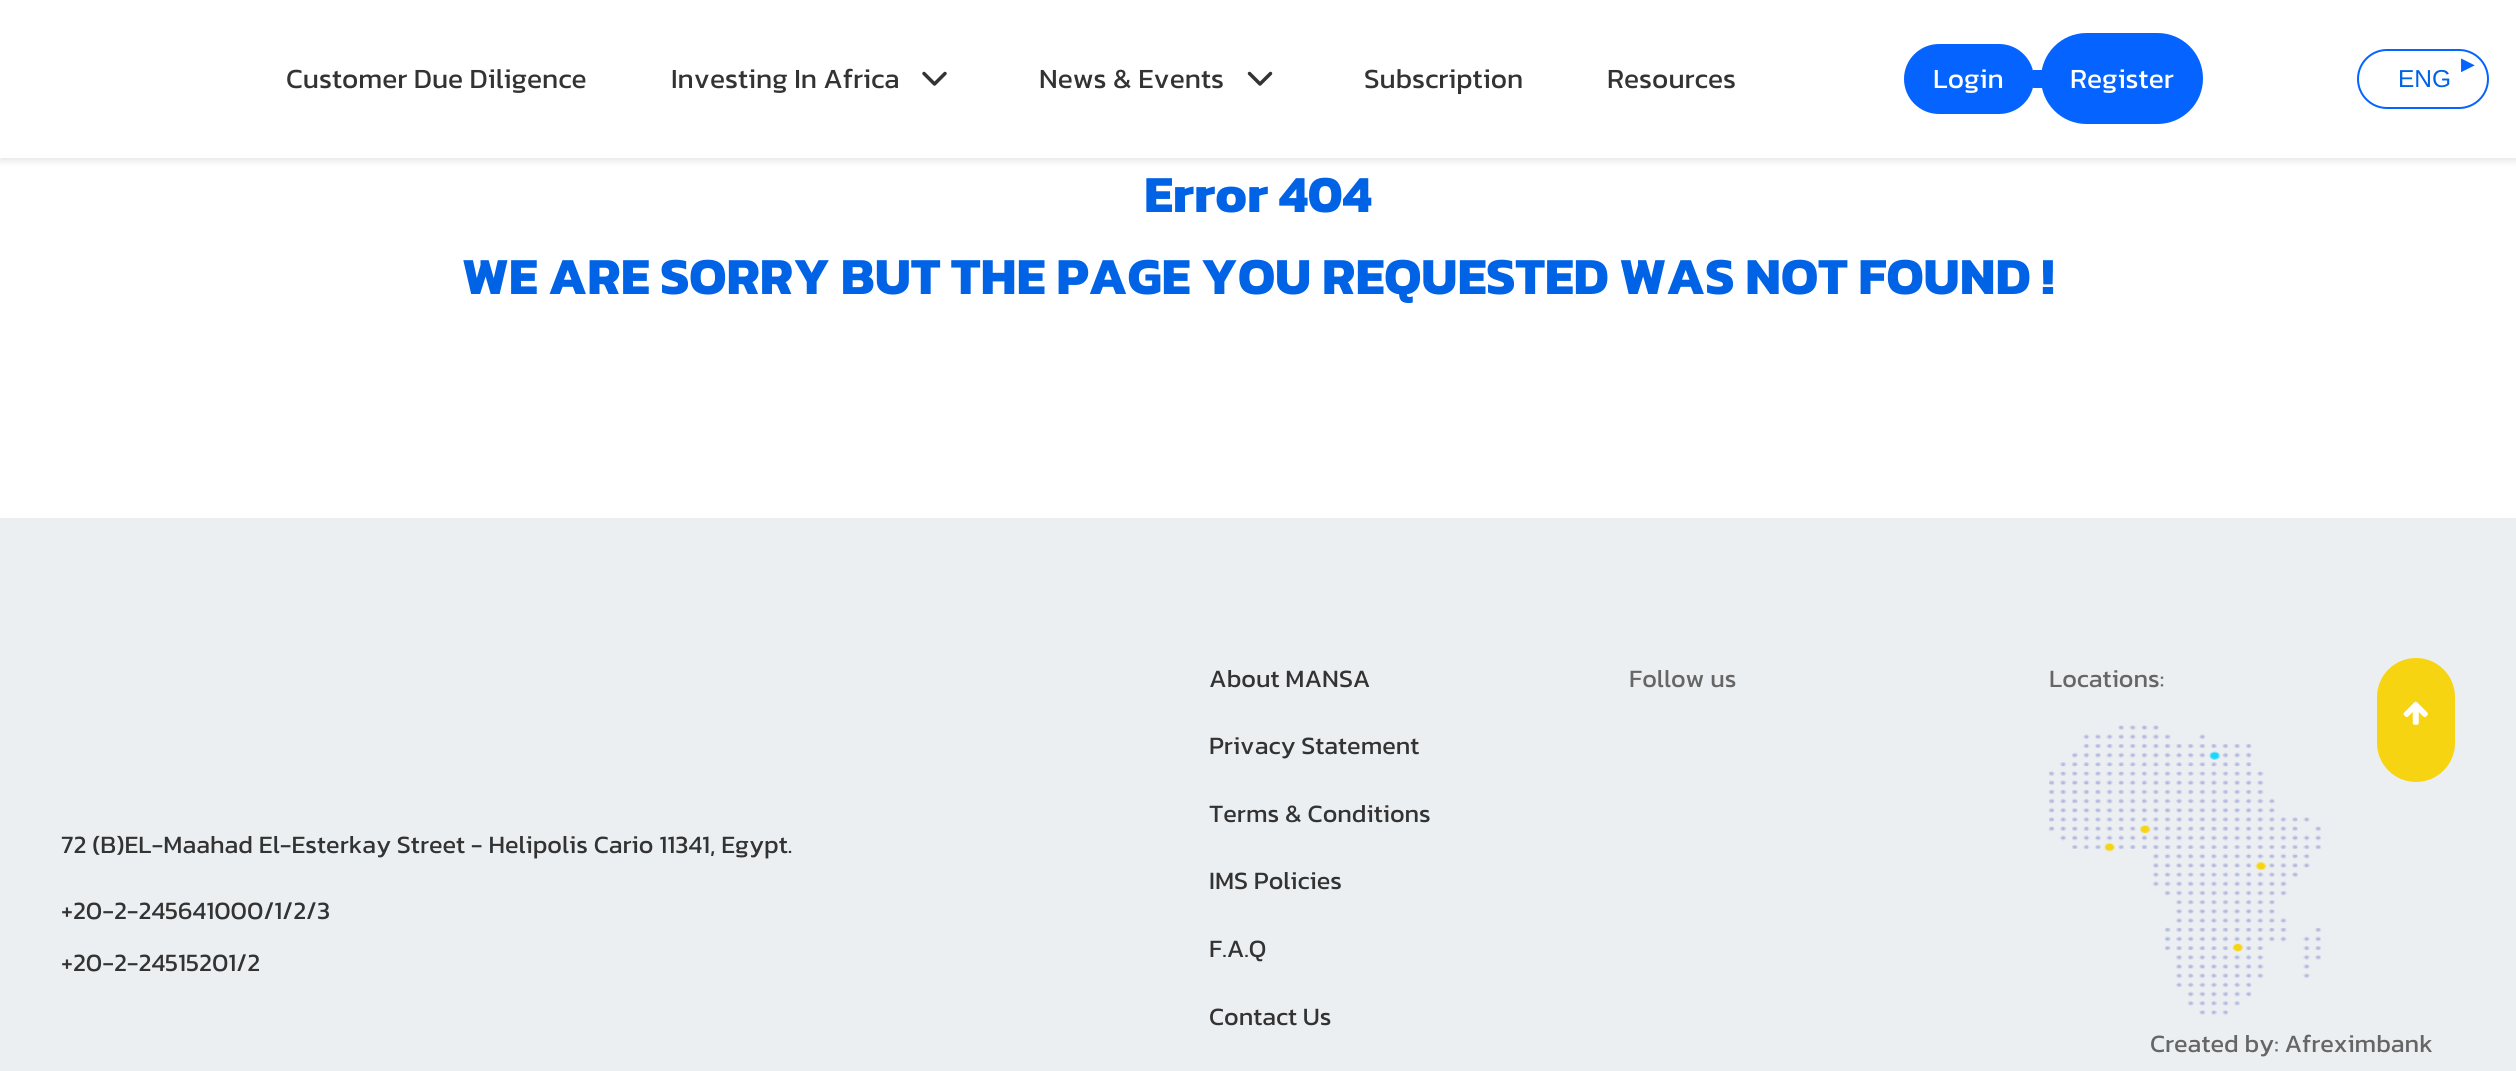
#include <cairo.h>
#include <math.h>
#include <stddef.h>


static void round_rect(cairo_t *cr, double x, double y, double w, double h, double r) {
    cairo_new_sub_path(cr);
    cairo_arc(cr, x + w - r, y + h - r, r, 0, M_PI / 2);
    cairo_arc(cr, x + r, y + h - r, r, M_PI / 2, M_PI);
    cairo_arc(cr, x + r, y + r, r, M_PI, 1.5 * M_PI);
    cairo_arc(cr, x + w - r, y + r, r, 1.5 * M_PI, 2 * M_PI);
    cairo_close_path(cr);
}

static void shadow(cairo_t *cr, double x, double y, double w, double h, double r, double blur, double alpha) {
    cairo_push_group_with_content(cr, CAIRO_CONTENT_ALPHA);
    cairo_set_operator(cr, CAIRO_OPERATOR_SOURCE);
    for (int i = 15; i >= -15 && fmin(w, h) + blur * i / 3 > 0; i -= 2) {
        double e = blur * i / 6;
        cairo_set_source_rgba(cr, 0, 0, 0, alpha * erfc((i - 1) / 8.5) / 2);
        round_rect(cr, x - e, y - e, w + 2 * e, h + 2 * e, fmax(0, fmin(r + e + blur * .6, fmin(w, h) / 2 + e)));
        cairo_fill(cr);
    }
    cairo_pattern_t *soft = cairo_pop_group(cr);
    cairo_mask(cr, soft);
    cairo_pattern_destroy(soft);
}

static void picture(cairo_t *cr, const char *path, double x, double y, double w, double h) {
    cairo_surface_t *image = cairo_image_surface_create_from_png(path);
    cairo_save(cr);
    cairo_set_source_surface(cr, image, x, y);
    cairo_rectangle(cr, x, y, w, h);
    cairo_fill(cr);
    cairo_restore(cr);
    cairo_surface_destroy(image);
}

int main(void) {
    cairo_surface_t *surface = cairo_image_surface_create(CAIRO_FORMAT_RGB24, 2516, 1071);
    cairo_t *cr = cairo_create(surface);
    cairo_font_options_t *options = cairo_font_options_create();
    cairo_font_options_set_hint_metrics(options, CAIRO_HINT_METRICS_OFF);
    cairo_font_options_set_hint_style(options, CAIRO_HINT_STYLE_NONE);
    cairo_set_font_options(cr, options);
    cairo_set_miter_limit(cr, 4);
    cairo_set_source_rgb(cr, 1, 1, 1);
    cairo_paint(cr);
    cairo_set_source_rgb(cr, 0, 0, 0);
    shadow(cr, 0, 4, 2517, 157, 0, 3.5, 0.1);
    cairo_set_source_rgb(cr, 1, 1, 1);
    cairo_rectangle(cr, 0, 0, 2516, 158);
    cairo_fill(cr);
    cairo_select_font_face(cr, "Kanit", CAIRO_FONT_SLANT_NORMAL, CAIRO_FONT_WEIGHT_NORMAL);
    cairo_set_font_size(cr, 28);
    cairo_set_source_rgb(cr, 0.2, 0.2, 0.2);
    cairo_move_to(cr, 286, 88);
    cairo_show_text(cr, "Customer Due Diligence");
    cairo_move_to(cr, 671, 88);
    cairo_show_text(cr, "Investing In Africa");
    cairo_new_path(cr);
    cairo_move_to(cr, 924, 73.5);
    cairo_line_to(cr, 934.5, 84);
    cairo_line_to(cr, 945, 73.5);
    cairo_set_line_width(cr, 3.5);
    cairo_set_line_cap(cr, CAIRO_LINE_CAP_ROUND);
    cairo_set_line_join(cr, CAIRO_LINE_JOIN_ROUND);
    cairo_stroke(cr);
    cairo_move_to(cr, 1039, 88);
    cairo_show_text(cr, "News & Events");
    cairo_new_path(cr);
    cairo_move_to(cr, 1249.5, 73.5);
    cairo_line_to(cr, 1260, 84);
    cairo_line_to(cr, 1270.5, 73.5);
    cairo_stroke(cr);
    cairo_move_to(cr, 1364, 88);
    cairo_show_text(cr, "Subscription");
    cairo_move_to(cr, 1607, 88);
    cairo_show_text(cr, "Resources");
    cairo_set_source_rgb(cr, 0.02, 0.392, 1);
    round_rect(cr, 1905, 45, 128, 68, 34);
    cairo_fill_preserve(cr);
    cairo_set_line_width(cr, 2);
    cairo_set_line_cap(cr, CAIRO_LINE_CAP_BUTT);
    cairo_set_line_join(cr, CAIRO_LINE_JOIN_MITER);
    cairo_stroke(cr);
    cairo_set_source_rgb(cr, 1, 1, 1);
    cairo_move_to(cr, 1933, 88);
    cairo_show_text(cr, "Login");
    cairo_set_source_rgb(cr, 0.02, 0.392, 1);
    round_rect(cr, 2042, 34, 160, 89, 44.5);
    cairo_fill_preserve(cr);
    cairo_stroke(cr);
    cairo_rectangle(cr, 2033, 70, 9, 18);
    cairo_fill(cr);
    cairo_set_source_rgb(cr, 1, 1, 1);
    cairo_move_to(cr, 2070, 88);
    cairo_show_text(cr, "Register");
    round_rect(cr, 2358, 50, 130, 58, 29);
    cairo_set_source_rgb(cr, 0.02, 0.392, 1);
    cairo_stroke(cr);
    cairo_select_font_face(cr, "DejaVu Sans", CAIRO_FONT_SLANT_NORMAL, CAIRO_FONT_WEIGHT_NORMAL);
    cairo_set_font_size(cr, 18);
    cairo_move_to(cr, 2461, 70);
    cairo_show_text(cr, "▶");
    cairo_select_font_face(cr, "Liberation Sans", CAIRO_FONT_SLANT_NORMAL, CAIRO_FONT_WEIGHT_NORMAL);
    cairo_set_font_size(cr, 24.5);
    cairo_set_source_rgb(cr, 0, 0.384, 0.894);
    cairo_move_to(cr, 2398, 87);
    cairo_show_text(cr, "ENG");
    cairo_select_font_face(cr, "Kanit", CAIRO_FONT_SLANT_NORMAL, CAIRO_FONT_WEIGHT_BOLD);
    cairo_set_font_size(cr, 52.5);
    cairo_move_to(cr, 1144, 212);
    cairo_show_text(cr, "Error 404");
    cairo_move_to(cr, 462, 294);
    cairo_show_text(cr, "WE ARE SORRY BUT THE PAGE YOU REQUESTED WAS NOT FOUND !");
    cairo_set_source_rgb(cr, 0.925, 0.937, 0.949);
    cairo_rectangle(cr, 0, 518, 2516, 553);
    cairo_fill(cr);
    cairo_select_font_face(cr, "Kanit", CAIRO_FONT_SLANT_NORMAL, CAIRO_FONT_WEIGHT_NORMAL);
    cairo_set_font_size(cr, 25.2);
    cairo_set_source_rgb(cr, 0.2, 0.2, 0.2);
    cairo_move_to(cr, 1209, 687);
    cairo_show_text(cr, "About MANSA");
    cairo_move_to(cr, 1209, 754);
    cairo_show_text(cr, "Privacy Statement");
    cairo_move_to(cr, 1209, 822);
    cairo_show_text(cr, "Terms & Conditions");
    cairo_move_to(cr, 1209, 889);
    cairo_show_text(cr, "IMS Policies");
    cairo_move_to(cr, 1209, 957);
    cairo_show_text(cr, "F.A.Q");
    cairo_move_to(cr, 1209, 1025);
    cairo_show_text(cr, "Contact Us");
    cairo_set_source_rgb(cr, 0.4, 0.4, 0.4);
    cairo_move_to(cr, 1629, 687);
    cairo_show_text(cr, "Follow us");
    cairo_move_to(cr, 2049, 687);
    cairo_show_text(cr, "Locations:");
    picture(cr, "img1.png", 2049, 725, 272, 290);
    cairo_set_source_rgb(cr, 0.961, 0.831, 0.071);
    round_rect(cr, 2377, 658, 78, 124, 39);
    cairo_fill(cr);
    picture(cr, "img2.png", 2403, 701, 25, 24);
    cairo_set_source_rgb(cr, 0.2, 0.2, 0.2);
    cairo_move_to(cr, 61, 853);
    cairo_show_text(cr, "72 (B)EL-Maahad El-Esterkay Street - Helipolis Cario 11341, Egypt.");
    cairo_move_to(cr, 61, 919);
    cairo_show_text(cr, "+20-2-245641000/1/2/3");
    cairo_move_to(cr, 61, 971);
    cairo_show_text(cr, "+20-2-24515201/2");
    cairo_set_source_rgb(cr, 0.4, 0.4, 0.4);
    cairo_move_to(cr, 2150, 1052);
    cairo_show_text(cr, "Created by: Afreximbank");
    cairo_surface_write_to_png(surface, "page.png");
    cairo_font_options_destroy(options);
    cairo_destroy(cr);
    cairo_surface_destroy(surface);
    return 0;
}
